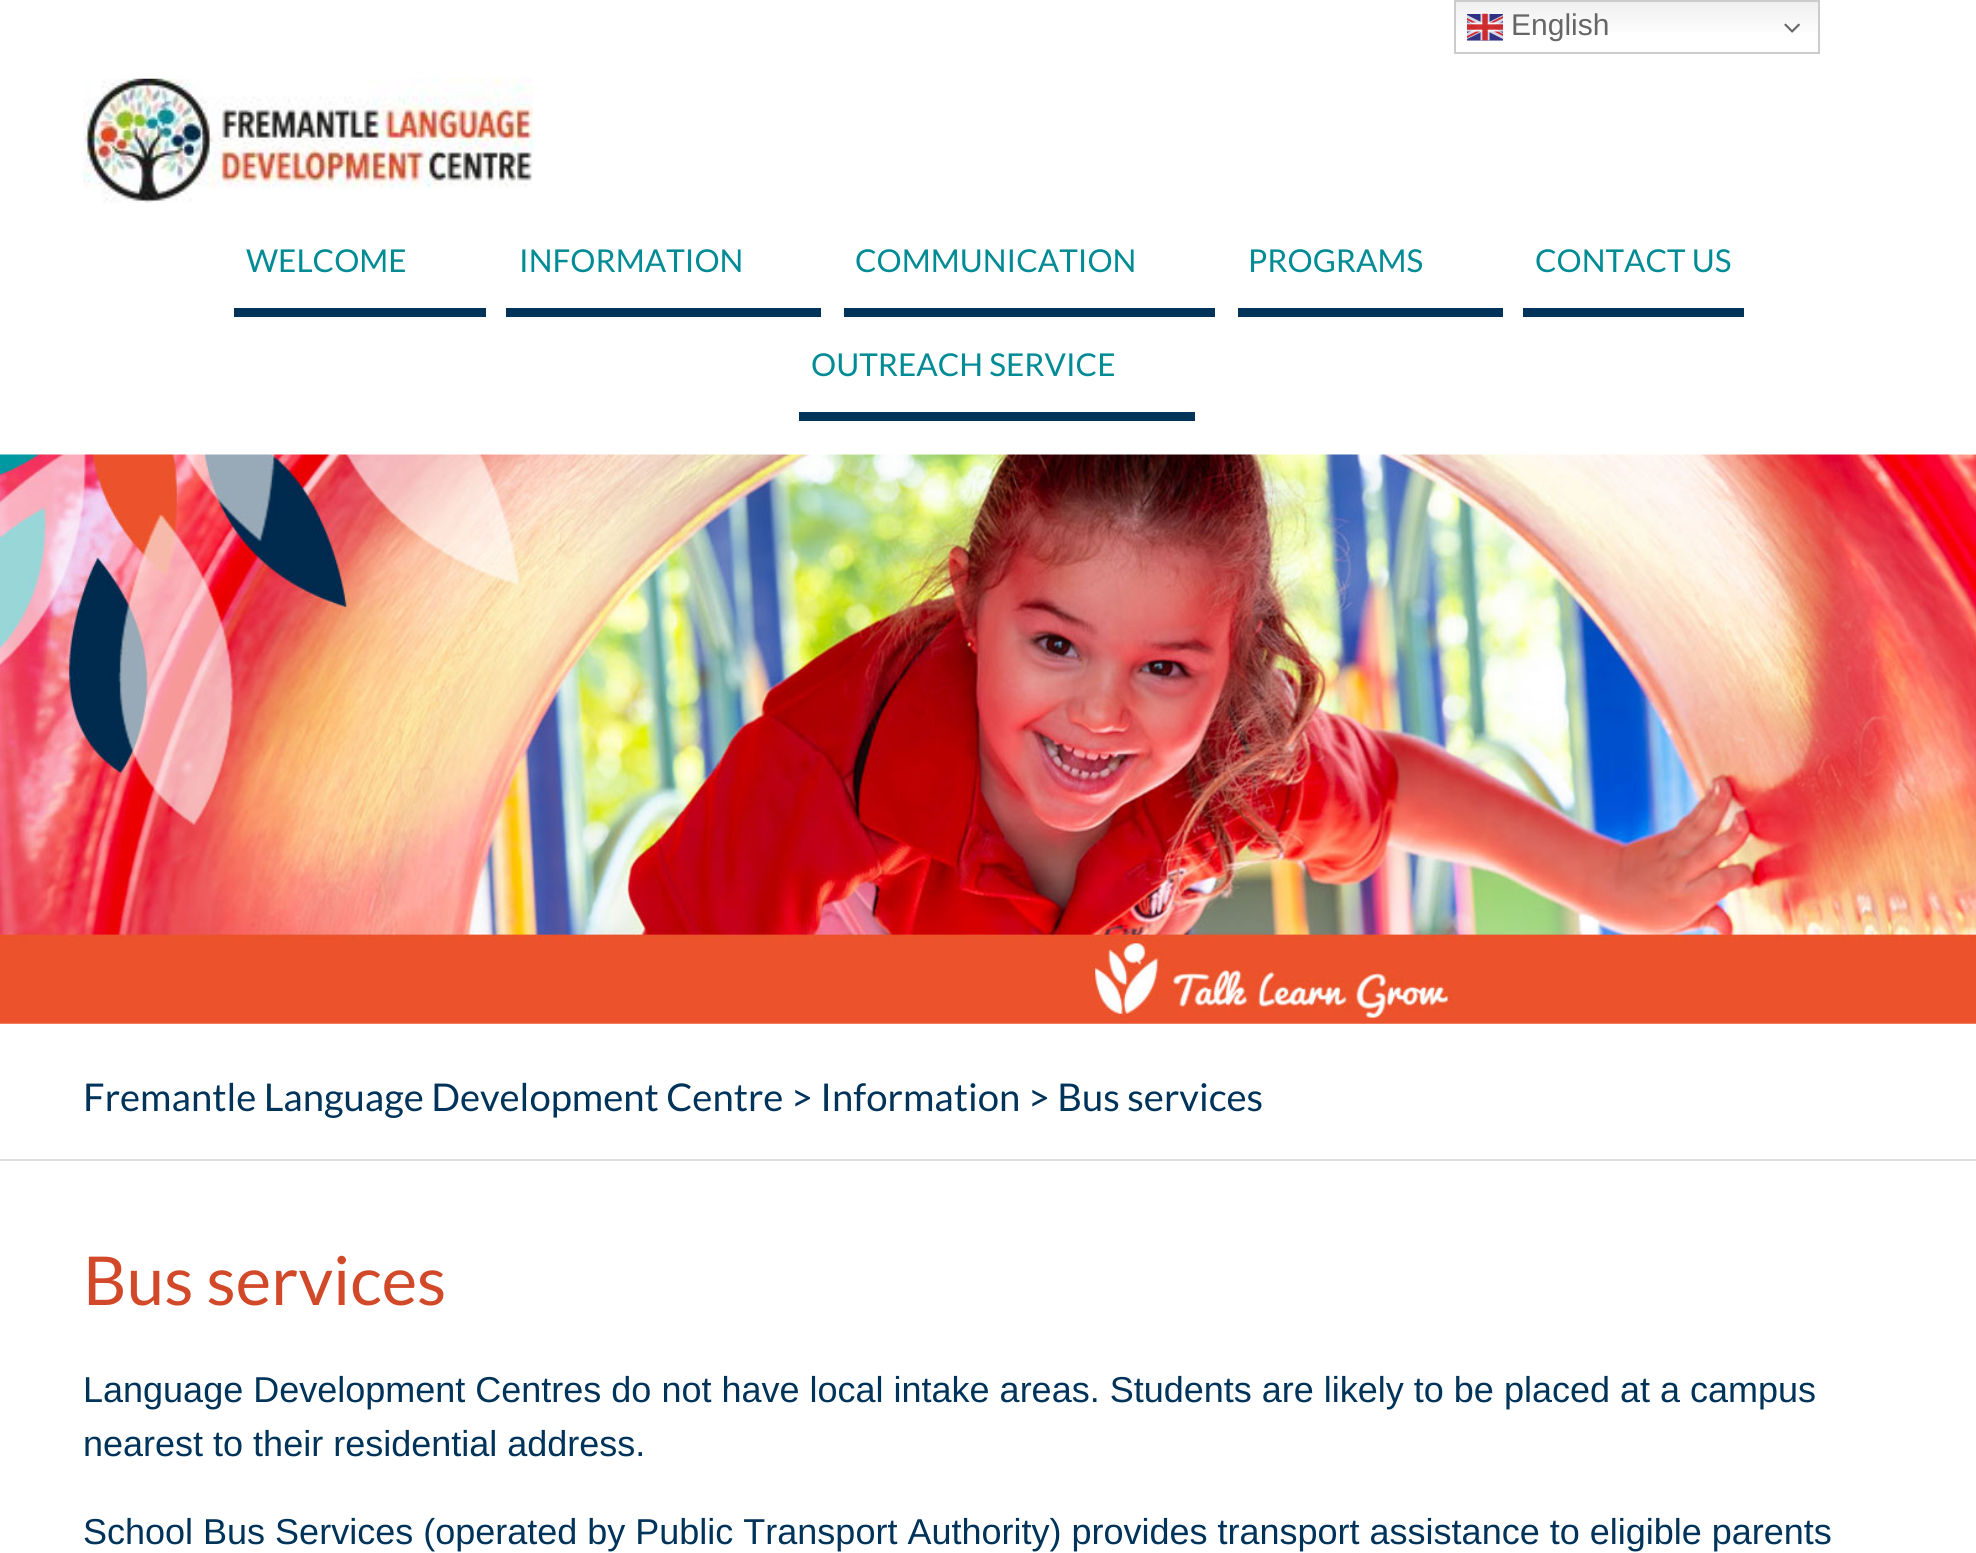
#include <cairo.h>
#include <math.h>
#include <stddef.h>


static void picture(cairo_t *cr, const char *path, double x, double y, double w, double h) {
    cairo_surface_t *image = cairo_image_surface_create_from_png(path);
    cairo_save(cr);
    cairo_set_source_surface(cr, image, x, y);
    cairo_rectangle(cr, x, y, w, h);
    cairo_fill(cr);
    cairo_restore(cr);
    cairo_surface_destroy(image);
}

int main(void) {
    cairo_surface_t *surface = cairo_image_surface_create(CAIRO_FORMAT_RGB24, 1976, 1553);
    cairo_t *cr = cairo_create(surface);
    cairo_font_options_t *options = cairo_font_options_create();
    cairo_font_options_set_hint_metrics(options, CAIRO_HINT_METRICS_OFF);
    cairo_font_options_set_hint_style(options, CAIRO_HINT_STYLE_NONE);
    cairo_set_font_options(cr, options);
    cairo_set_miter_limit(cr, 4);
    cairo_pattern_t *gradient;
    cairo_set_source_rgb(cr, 1, 1, 1);
    cairo_paint(cr);
    gradient = cairo_pattern_create_linear(1637, 0, 1637, 54);
    cairo_pattern_add_color_stop_rgba(gradient, 0, 0.937, 0.937, 0.937, 1);
    cairo_pattern_add_color_stop_rgba(gradient, 0.7, 1, 1, 1, 1);
    cairo_set_source(cr, gradient);
    cairo_pattern_destroy(gradient);
    cairo_rectangle(cr, 1456, 2, 362, 30);
    cairo_fill(cr);
    cairo_rectangle(cr, 1455, 1, 364, 52);
    cairo_set_source_rgb(cr, 0.8, 0.8, 0.8);
    cairo_stroke(cr);
    picture(cr, "img1.png", 1467, 13, 36, 28);
    cairo_select_font_face(cr, "Liberation Sans", CAIRO_FONT_SLANT_NORMAL, CAIRO_FONT_WEIGHT_NORMAL);
    cairo_set_font_size(cr, 30);
    cairo_set_source_rgb(cr, 0.4, 0.4, 0.4);
    cairo_move_to(cr, 1511, 35);
    cairo_show_text(cr, "English");
    picture(cr, "img2.png", 1784, 23, 16, 10);
    picture(cr, "img3.png", 83, 78, 451, 125);
    cairo_select_font_face(cr, "Lato", CAIRO_FONT_SLANT_NORMAL, CAIRO_FONT_WEIGHT_NORMAL);
    cairo_set_font_size(cr, 31.5);
    cairo_set_source_rgb(cr, 0, 0.545, 0.584);
    cairo_move_to(cr, 246, 272);
    cairo_show_text(cr, "WELCOME");
    cairo_set_source_rgb(cr, 0, 0.2, 0.349);
    cairo_rectangle(cr, 234, 308, 252, 9);
    cairo_fill(cr);
    cairo_set_source_rgb(cr, 0, 0.545, 0.584);
    cairo_move_to(cr, 519, 272);
    cairo_show_text(cr, "INFORMATION");
    cairo_set_source_rgb(cr, 0, 0.2, 0.349);
    cairo_rectangle(cr, 506, 308, 315, 9);
    cairo_fill(cr);
    cairo_set_source_rgb(cr, 0, 0.545, 0.584);
    cairo_move_to(cr, 855, 272);
    cairo_show_text(cr, "COMMUNICATION");
    cairo_set_source_rgb(cr, 0, 0.2, 0.349);
    cairo_rectangle(cr, 844, 308, 371, 9);
    cairo_fill(cr);
    cairo_set_source_rgb(cr, 0, 0.545, 0.584);
    cairo_move_to(cr, 1248, 272);
    cairo_show_text(cr, "PROGRAMS");
    cairo_set_source_rgb(cr, 0, 0.2, 0.349);
    cairo_rectangle(cr, 1238, 308, 265, 9);
    cairo_fill(cr);
    cairo_set_source_rgb(cr, 0, 0.545, 0.584);
    cairo_move_to(cr, 1535, 272);
    cairo_show_text(cr, "CONTACT US");
    cairo_set_source_rgb(cr, 0, 0.2, 0.349);
    cairo_rectangle(cr, 1523, 308, 221, 9);
    cairo_fill(cr);
    cairo_set_source_rgb(cr, 0, 0.545, 0.584);
    cairo_move_to(cr, 811, 376);
    cairo_show_text(cr, "OUTREACH SERVICE");
    cairo_set_source_rgb(cr, 0, 0.2, 0.349);
    cairo_rectangle(cr, 799, 412, 396, 9);
    cairo_fill(cr);
    picture(cr, "img4.png", 0, 454, 1976, 570);
    cairo_set_source_rgb(cr, 0.867, 0.867, 0.867);
    cairo_rectangle(cr, 0, 1159, 1976, 2);
    cairo_fill(cr);
    cairo_set_font_size(cr, 38.25);
    cairo_set_source_rgb(cr, 0, 0.2, 0.349);
    cairo_move_to(cr, 83, 1111);
    cairo_show_text(cr, "Fremantle Language Development Centre > Information > Bus services");
    cairo_set_font_size(cr, 67.5);
    cairo_set_source_rgb(cr, 0.824, 0.286, 0.165);
    cairo_move_to(cr, 83, 1305);
    cairo_show_text(cr, "Bus services");
    cairo_select_font_face(cr, "Liberation Sans", CAIRO_FONT_SLANT_NORMAL, CAIRO_FONT_WEIGHT_NORMAL);
    cairo_set_font_size(cr, 36);
    cairo_set_source_rgb(cr, 0, 0.2, 0.349);
    cairo_move_to(cr, 83, 1402);
    cairo_show_text(cr, "Language Development Centres do not have local intake areas. Students are likely to be placed at a campus");
    cairo_move_to(cr, 83, 1456);
    cairo_show_text(cr, "nearest to their residential address.");
    cairo_move_to(cr, 83, 1544);
    cairo_show_text(cr, "School Bus Services (operated by Public Transport Authority) provides transport assistance to eligible parents");
    cairo_surface_write_to_png(surface, "page.png");
    cairo_font_options_destroy(options);
    cairo_destroy(cr);
    cairo_surface_destroy(surface);
    return 0;
}
